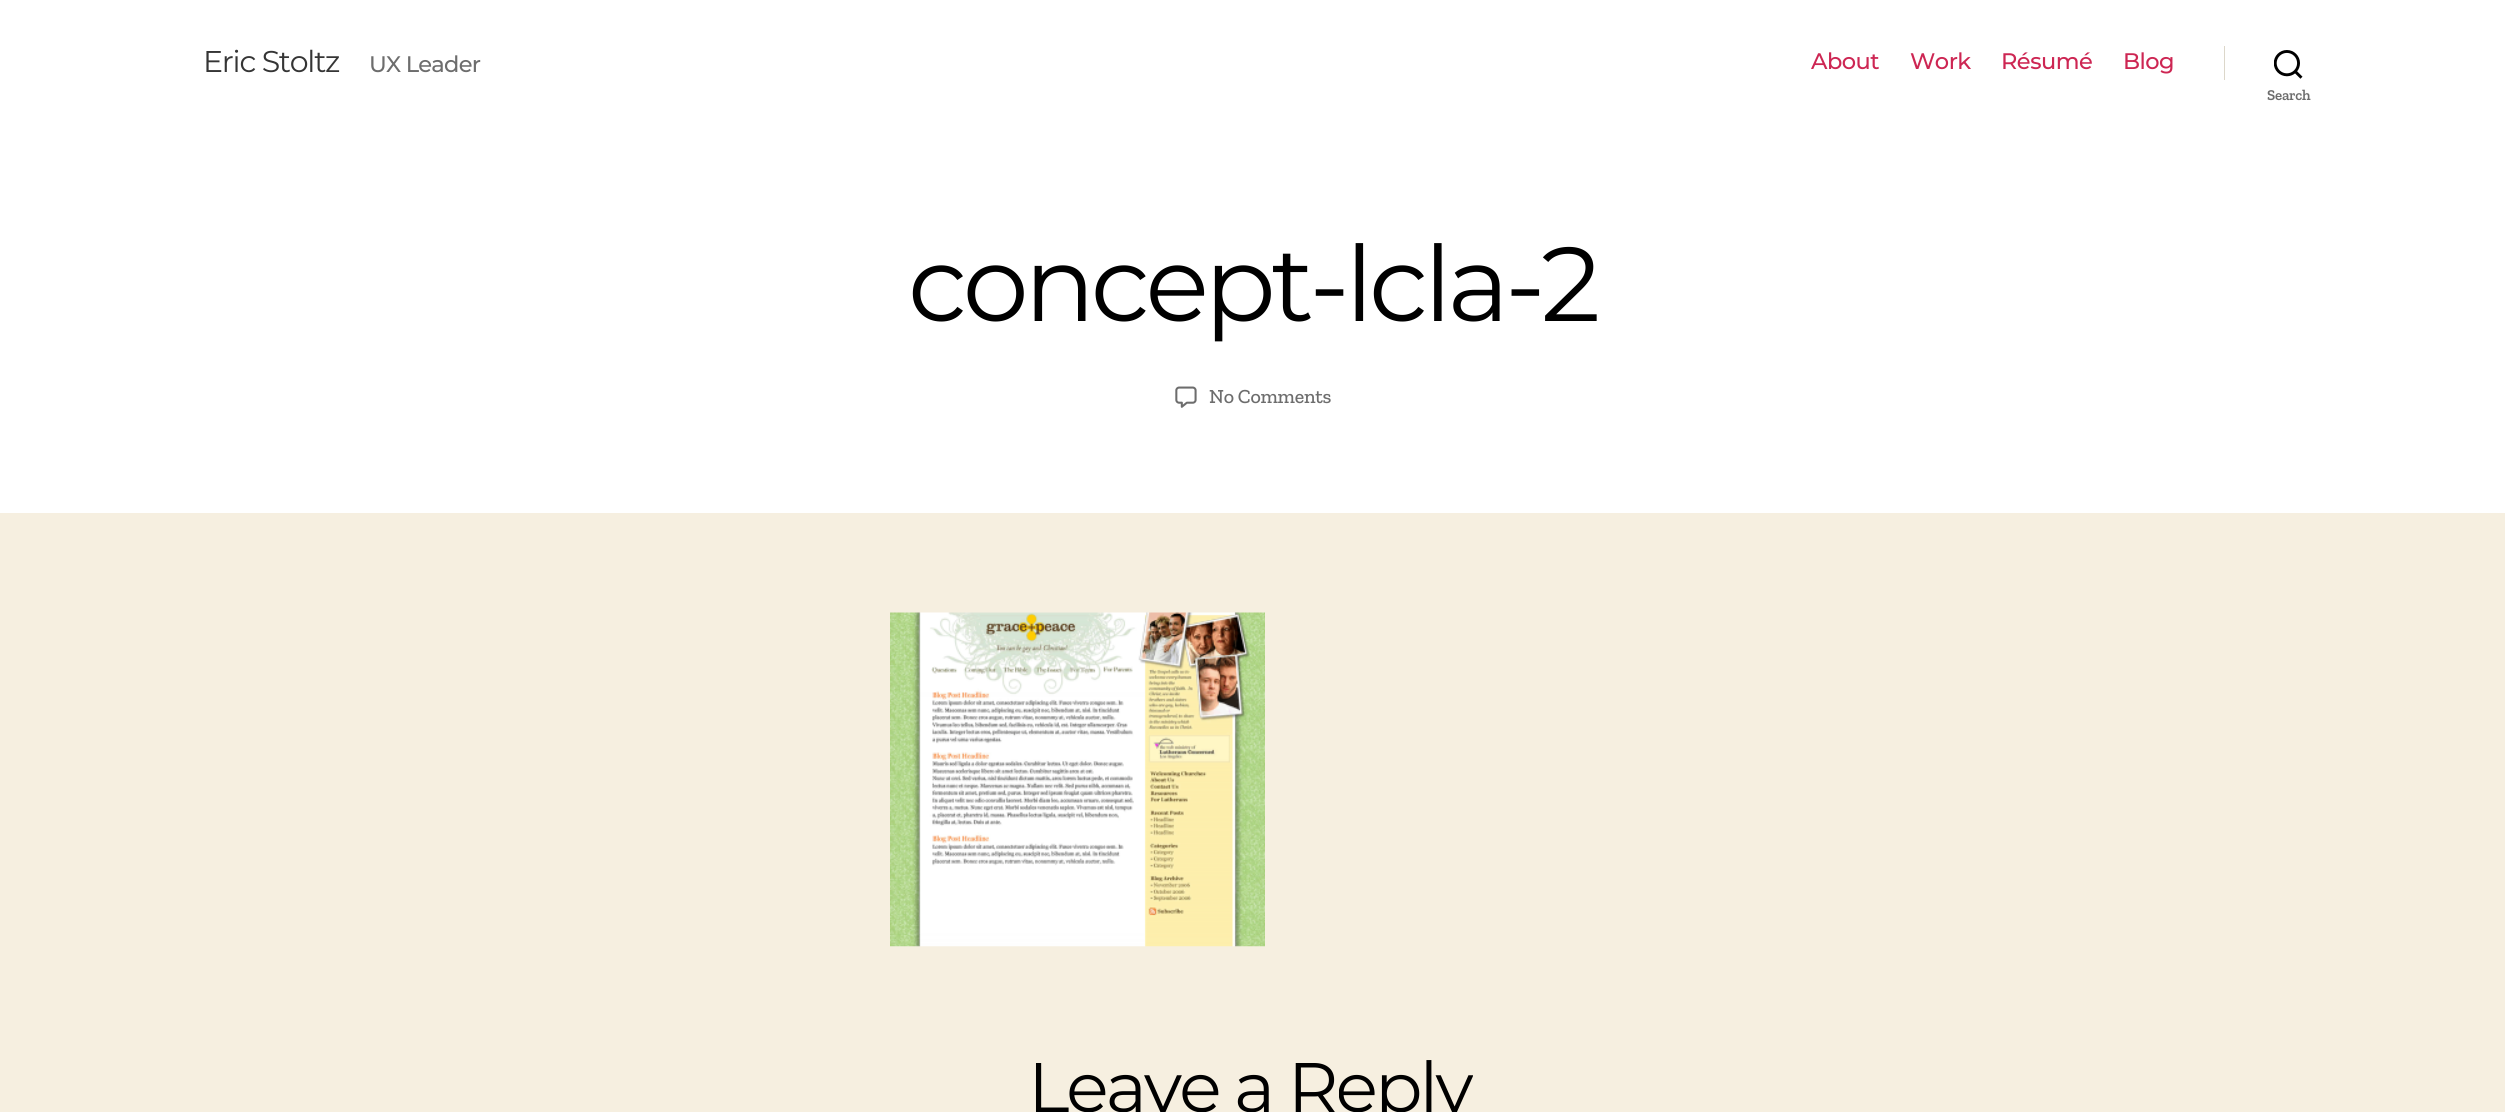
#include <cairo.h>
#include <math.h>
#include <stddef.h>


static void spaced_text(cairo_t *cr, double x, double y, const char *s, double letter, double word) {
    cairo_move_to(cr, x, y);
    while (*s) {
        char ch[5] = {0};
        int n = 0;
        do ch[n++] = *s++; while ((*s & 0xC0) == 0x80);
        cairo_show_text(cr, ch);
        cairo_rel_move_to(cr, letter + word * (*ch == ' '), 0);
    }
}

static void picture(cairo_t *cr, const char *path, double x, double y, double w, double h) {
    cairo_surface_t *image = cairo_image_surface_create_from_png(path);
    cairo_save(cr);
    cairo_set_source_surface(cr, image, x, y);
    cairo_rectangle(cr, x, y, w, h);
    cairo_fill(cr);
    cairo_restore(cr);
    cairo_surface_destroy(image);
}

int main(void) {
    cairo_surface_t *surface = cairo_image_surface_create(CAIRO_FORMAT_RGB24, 2505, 1112);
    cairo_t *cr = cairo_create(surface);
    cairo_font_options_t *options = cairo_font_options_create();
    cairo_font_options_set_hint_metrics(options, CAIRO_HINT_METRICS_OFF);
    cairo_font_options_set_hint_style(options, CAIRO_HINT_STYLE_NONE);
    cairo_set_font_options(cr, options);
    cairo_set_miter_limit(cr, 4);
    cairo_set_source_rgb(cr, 0.961, 0.937, 0.878);
    cairo_paint(cr);
    cairo_set_source_rgb(cr, 1, 1, 1);
    cairo_rectangle(cr, 0, 0, 2505, 513);
    cairo_fill(cr);
    cairo_select_font_face(cr, "Montserrat", CAIRO_FONT_SLANT_NORMAL, CAIRO_FONT_WEIGHT_NORMAL);
    cairo_set_font_size(cr, 30);
    cairo_set_source_rgb(cr, 0.208, 0.208, 0.208);
    spaced_text(cr, 203, 72, "Eric Stoltz", -1.25, 0);
    cairo_select_font_face(cr, "Montserrat Medium", CAIRO_FONT_SLANT_NORMAL, CAIRO_FONT_WEIGHT_NORMAL);
    cairo_set_font_size(cr, 22.5);
    cairo_set_source_rgb(cr, 0.427, 0.427, 0.427);
    spaced_text(cr, 369, 72, "UX Leader", -0.75, 0);
    cairo_set_source_rgb(cr, 0.804, 0.149, 0.325);
    spaced_text(cr, 1811, 69, "About", -0.5, 0);
    spaced_text(cr, 1910, 69, "Work", -0.5, 0);
    spaced_text(cr, 2001, 69, "Résumé", -0.5, 0);
    spaced_text(cr, 2123, 69, "Blog", -0.5, 0);
    cairo_set_source_rgb(cr, 0.863, 0.843, 0.792);
    cairo_rectangle(cr, 2224, 46, 1, 34);
    cairo_fill(cr);
    picture(cr, "img1.png", 2274, 50, 29, 29);
    cairo_select_font_face(cr, "Zilla Slab SemiBold", CAIRO_FONT_SLANT_NORMAL, CAIRO_FONT_WEIGHT_NORMAL);
    cairo_set_font_size(cr, 15);
    cairo_set_source_rgb(cr, 0.427, 0.427, 0.427);
    spaced_text(cr, 2267, 100, "Search", -0.25, 0);
    cairo_select_font_face(cr, "Montserrat", CAIRO_FONT_SLANT_NORMAL, CAIRO_FONT_WEIGHT_NORMAL);
    cairo_set_font_size(cr, 105);
    cairo_set_source_rgb(cr, 0, 0, 0);
    spaced_text(cr, 908, 321, "concept-lcla-2", -4.4, 0);
    picture(cr, "img2.png", 1175, 386, 22, 22);
    cairo_select_font_face(cr, "Zilla Slab Medium", CAIRO_FONT_SLANT_NORMAL, CAIRO_FONT_WEIGHT_NORMAL);
    cairo_set_font_size(cr, 20);
    cairo_set_source_rgb(cr, 0.427, 0.427, 0.427);
    spaced_text(cr, 1209, 403, "No Comments", -0.25, 0);
    picture(cr, "img3.png", 890, 612, 375, 335);
    cairo_select_font_face(cr, "Montserrat", CAIRO_FONT_SLANT_NORMAL, CAIRO_FONT_WEIGHT_NORMAL);
    cairo_set_font_size(cr, 70);
    cairo_set_source_rgb(cr, 0, 0, 0);
    spaced_text(cr, 1028, 1112, "Leave a Reply", -2.9, 0);
    cairo_surface_write_to_png(surface, "page.png");
    cairo_font_options_destroy(options);
    cairo_destroy(cr);
    cairo_surface_destroy(surface);
    return 0;
}
